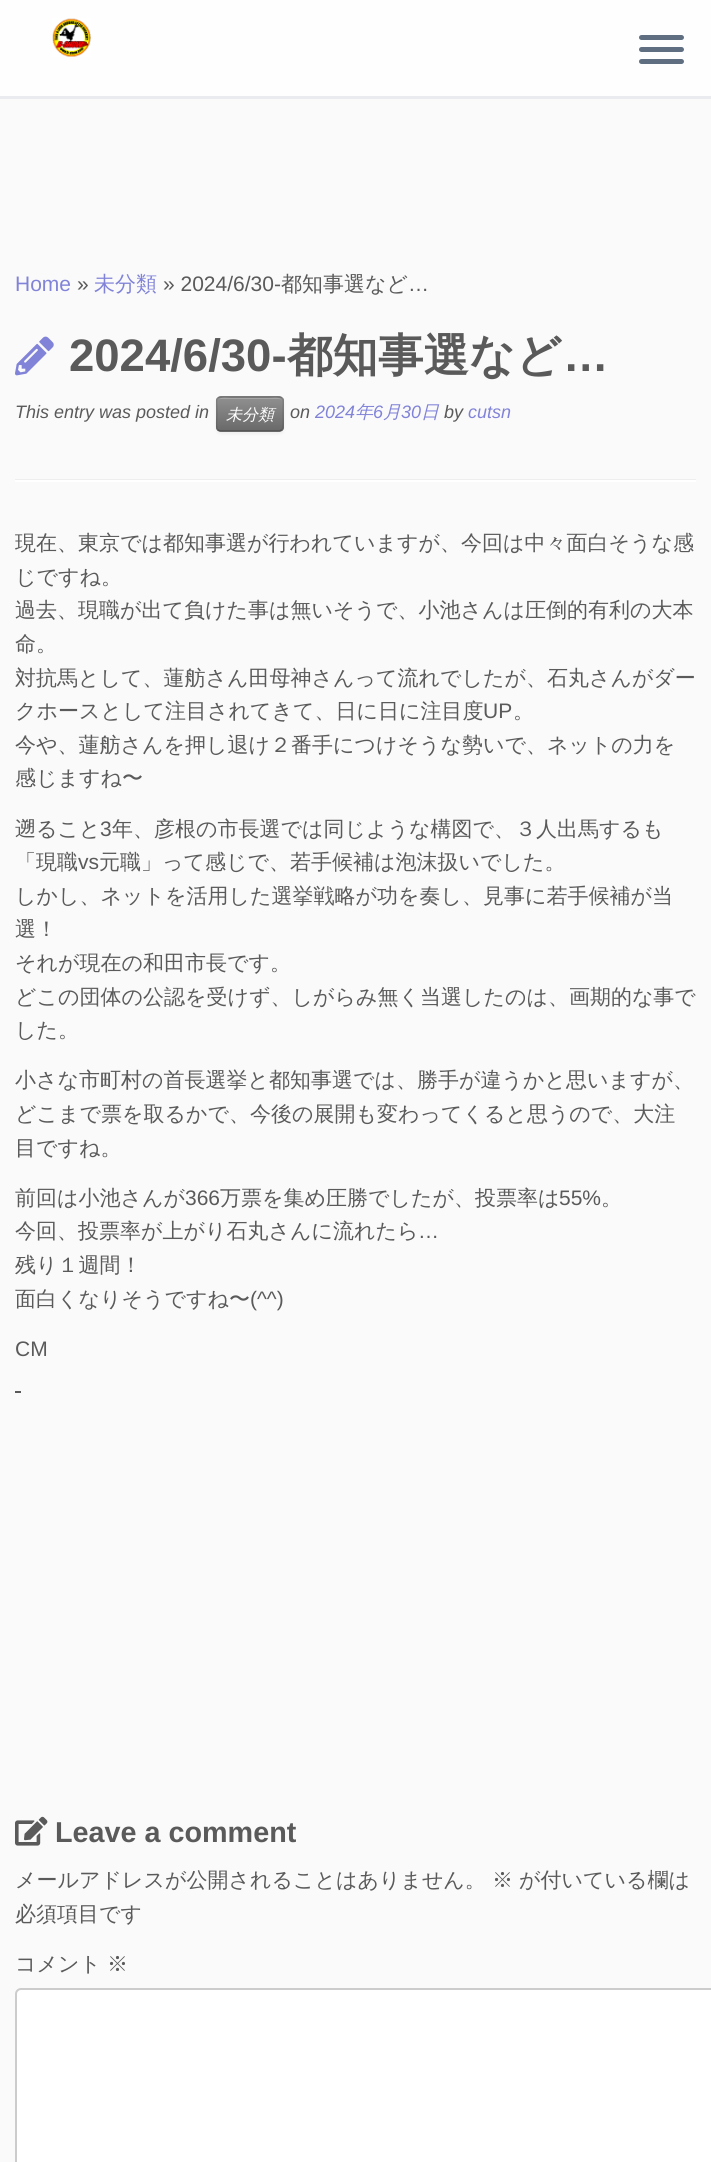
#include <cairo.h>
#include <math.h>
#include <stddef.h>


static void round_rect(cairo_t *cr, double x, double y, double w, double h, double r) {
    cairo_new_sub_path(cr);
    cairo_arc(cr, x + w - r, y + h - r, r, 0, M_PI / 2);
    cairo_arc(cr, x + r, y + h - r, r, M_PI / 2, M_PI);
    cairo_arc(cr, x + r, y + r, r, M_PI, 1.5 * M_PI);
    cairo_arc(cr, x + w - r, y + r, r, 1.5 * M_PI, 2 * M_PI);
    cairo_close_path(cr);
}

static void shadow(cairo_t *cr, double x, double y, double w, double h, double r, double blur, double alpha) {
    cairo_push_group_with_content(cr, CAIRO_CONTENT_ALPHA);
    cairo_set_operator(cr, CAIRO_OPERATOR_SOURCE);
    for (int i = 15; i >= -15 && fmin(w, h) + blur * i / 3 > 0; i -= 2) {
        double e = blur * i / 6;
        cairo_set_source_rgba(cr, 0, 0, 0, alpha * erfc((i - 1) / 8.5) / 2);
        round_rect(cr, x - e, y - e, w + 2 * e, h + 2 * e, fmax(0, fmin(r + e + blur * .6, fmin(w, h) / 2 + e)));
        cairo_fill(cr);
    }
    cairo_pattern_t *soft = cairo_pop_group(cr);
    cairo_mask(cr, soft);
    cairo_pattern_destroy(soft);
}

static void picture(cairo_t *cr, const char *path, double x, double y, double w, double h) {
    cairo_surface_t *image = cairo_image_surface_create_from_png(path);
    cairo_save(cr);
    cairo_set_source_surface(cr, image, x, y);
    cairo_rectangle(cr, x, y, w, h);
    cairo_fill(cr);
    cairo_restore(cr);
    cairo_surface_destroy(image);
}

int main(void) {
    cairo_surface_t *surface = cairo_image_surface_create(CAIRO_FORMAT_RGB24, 711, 2162);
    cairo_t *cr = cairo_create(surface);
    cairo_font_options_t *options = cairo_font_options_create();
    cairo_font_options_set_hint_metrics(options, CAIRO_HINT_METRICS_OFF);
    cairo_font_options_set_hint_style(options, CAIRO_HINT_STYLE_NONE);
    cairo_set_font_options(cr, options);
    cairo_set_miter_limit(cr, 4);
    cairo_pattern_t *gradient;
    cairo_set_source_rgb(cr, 0.98, 0.98, 0.98);
    cairo_paint(cr);
    cairo_set_source_rgb(cr, 0.996, 0.996, 0.996);
    cairo_rectangle(cr, 0, 0, 711, 96);
    cairo_fill(cr);
    cairo_set_source_rgb(cr, 0.914, 0.918, 0.933);
    cairo_rectangle(cr, 0, 96, 711, 3);
    cairo_fill(cr);
    picture(cr, "img1.png", 52, 18, 39, 39);
    cairo_set_source_rgb(cr, 0.373, 0.435, 0.506);
    round_rect(cr, 639, 35, 45, 5, 2.5);
    cairo_fill(cr);
    round_rect(cr, 639, 47, 45, 5, 2.5);
    cairo_fill(cr);
    round_rect(cr, 639, 59, 45, 5, 2.5);
    cairo_fill(cr);
    cairo_select_font_face(cr, "Liberation Sans", CAIRO_FONT_SLANT_NORMAL, CAIRO_FONT_WEIGHT_NORMAL);
    cairo_set_font_size(cr, 21);
    cairo_set_source_rgb(cr, 0.506, 0.514, 0.847);
    cairo_move_to(cr, 15, 291);
    cairo_show_text(cr, "Home");
    cairo_set_source_rgb(cr, 0.353, 0.353, 0.353);
    cairo_move_to(cr, 77, 291);
    cairo_show_text(cr, "»");
    cairo_select_font_face(cr, "WenQuanYi Zen Hei Medium", CAIRO_FONT_SLANT_NORMAL, CAIRO_FONT_WEIGHT_NORMAL);
    cairo_set_source_rgb(cr, 0.506, 0.514, 0.847);
    cairo_move_to(cr, 94, 291);
    cairo_show_text(cr, "未分類");
    cairo_select_font_face(cr, "Liberation Sans", CAIRO_FONT_SLANT_NORMAL, CAIRO_FONT_WEIGHT_NORMAL);
    cairo_set_source_rgb(cr, 0.353, 0.353, 0.353);
    cairo_move_to(cr, 163, 291);
    cairo_show_text(cr, "» 2024/6/30-");
    cairo_select_font_face(cr, "WenQuanYi Zen Hei Medium", CAIRO_FONT_SLANT_NORMAL, CAIRO_FONT_WEIGHT_NORMAL);
    cairo_move_to(cr, 281, 291);
    cairo_show_text(cr, "都知事選など");
    cairo_select_font_face(cr, "Liberation Sans", CAIRO_FONT_SLANT_NORMAL, CAIRO_FONT_WEIGHT_NORMAL);
    cairo_move_to(cr, 408, 291);
    cairo_show_text(cr, "…");
    picture(cr, "img2.png", 15, 336, 39, 40);
    cairo_select_font_face(cr, "Liberation Sans", CAIRO_FONT_SLANT_NORMAL, CAIRO_FONT_WEIGHT_BOLD);
    cairo_set_font_size(cr, 45.5);
    cairo_move_to(cr, 69, 371);
    cairo_show_text(cr, "2024/6/30-");
    cairo_select_font_face(cr, "WenQuanYi Zen Hei", CAIRO_FONT_SLANT_NORMAL, CAIRO_FONT_WEIGHT_BOLD);
    cairo_move_to(cr, 287, 371);
    cairo_show_text(cr, "都知事選など");
    cairo_select_font_face(cr, "Liberation Sans", CAIRO_FONT_SLANT_NORMAL, CAIRO_FONT_WEIGHT_BOLD);
    cairo_move_to(cr, 563, 371);
    cairo_show_text(cr, "…");
    cairo_select_font_face(cr, "Liberation Sans", CAIRO_FONT_SLANT_ITALIC, CAIRO_FONT_WEIGHT_NORMAL);
    cairo_set_font_size(cr, 18);
    cairo_move_to(cr, 15, 418);
    cairo_show_text(cr, "This entry was posted in");
    cairo_set_source_rgb(cr, 0, 0, 0);
    shadow(cr, 216, 398, 68, 36, 5, 1.5, 0.05);
    cairo_set_source_rgb(cr, 0.502, 0.502, 0.502);
    round_rect(cr, 216, 396, 68, 36, 5);
    cairo_fill(cr);
    cairo_save(cr);
    round_rect(cr, 216, 396, 68, 36, 5);
    cairo_clip(cr);
    gradient = cairo_pattern_create_linear(250, 398, 250, 431);
    cairo_pattern_add_color_stop_rgba(gradient, 0, 0.561, 0.561, 0.561, 1);
    cairo_pattern_add_color_stop_rgba(gradient, 1, 0.412, 0.412, 0.412, 1);
    cairo_set_source(cr, gradient);
    cairo_pattern_destroy(gradient);
    cairo_rectangle(cr, 216, 398, 68, 33);
    cairo_fill(cr);
    cairo_restore(cr);
    cairo_set_source_rgb(cr, 0.647, 0.647, 0.647);
    cairo_new_path(cr);
    cairo_move_to(cr, 220, 399);
    cairo_line_to(cr, 279, 399);
    cairo_curve_to(cr, 281, 399, 282, 400, 282, 402);
    cairo_curve_to(cr, 282, 396, 274, 398, 269, 398);
    cairo_line_to(cr, 231, 398);
    cairo_curve_to(cr, 226, 398, 218, 396, 218, 402);
    cairo_curve_to(cr, 218, 400, 219, 399, 220, 399);
    cairo_close_path(cr);
    cairo_fill(cr);
    cairo_new_path(cr);
    cairo_move_to(cr, 281.5, 430);
    cairo_line_to(cr, 279.5, 431);
    cairo_line_to(cr, 220, 431);
    cairo_line_to(cr, 218, 430);
    cairo_set_source_rgba(cr, 0, 0, 0, 0.25);
    cairo_set_line_width(cr, 1.5);
    cairo_stroke(cr);
    cairo_new_path(cr);
    cairo_move_to(cr, 218, 430);
    cairo_curve_to(cr, 215.5, 428, 217, 417, 217, 414);
    cairo_curve_to(cr, 217, 396, 213, 397, 230, 397);
    cairo_line_to(cr, 269, 397);
    cairo_curve_to(cr, 286.5, 397, 283, 396, 283, 414);
    cairo_curve_to(cr, 283, 417, 284, 428, 281.5, 430);
    cairo_set_source_rgba(cr, 0, 0, 0, 0.1);
    cairo_stroke(cr);
    cairo_select_font_face(cr, "WenQuanYi Zen Hei Medium", CAIRO_FONT_SLANT_ITALIC, CAIRO_FONT_WEIGHT_NORMAL);
    cairo_set_font_size(cr, 16);
    cairo_set_source_rgb(cr, 1, 1, 1);
    cairo_move_to(cr, 226, 420);
    cairo_show_text(cr, "未分類");
    cairo_select_font_face(cr, "Liberation Sans", CAIRO_FONT_SLANT_ITALIC, CAIRO_FONT_WEIGHT_NORMAL);
    cairo_set_font_size(cr, 18);
    cairo_set_source_rgb(cr, 0.353, 0.353, 0.353);
    cairo_move_to(cr, 290, 418);
    cairo_show_text(cr, "on");
    cairo_set_source_rgb(cr, 0.506, 0.514, 0.847);
    cairo_move_to(cr, 315, 418);
    cairo_show_text(cr, "2024");
    cairo_select_font_face(cr, "WenQuanYi Zen Hei Medium", CAIRO_FONT_SLANT_ITALIC, CAIRO_FONT_WEIGHT_NORMAL);
    cairo_move_to(cr, 355, 418);
    cairo_show_text(cr, "年");
    cairo_select_font_face(cr, "Liberation Sans", CAIRO_FONT_SLANT_ITALIC, CAIRO_FONT_WEIGHT_NORMAL);
    cairo_move_to(cr, 373, 418);
    cairo_show_text(cr, "6");
    cairo_select_font_face(cr, "WenQuanYi Zen Hei Medium", CAIRO_FONT_SLANT_ITALIC, CAIRO_FONT_WEIGHT_NORMAL);
    cairo_move_to(cr, 383, 418);
    cairo_show_text(cr, "月");
    cairo_select_font_face(cr, "Liberation Sans", CAIRO_FONT_SLANT_ITALIC, CAIRO_FONT_WEIGHT_NORMAL);
    cairo_move_to(cr, 401, 418);
    cairo_show_text(cr, "30");
    cairo_select_font_face(cr, "WenQuanYi Zen Hei Medium", CAIRO_FONT_SLANT_ITALIC, CAIRO_FONT_WEIGHT_NORMAL);
    cairo_move_to(cr, 421, 418);
    cairo_show_text(cr, "日");
    cairo_select_font_face(cr, "Liberation Sans", CAIRO_FONT_SLANT_ITALIC, CAIRO_FONT_WEIGHT_NORMAL);
    cairo_set_source_rgb(cr, 0.353, 0.353, 0.353);
    cairo_move_to(cr, 444, 418);
    cairo_show_text(cr, "by");
    cairo_set_source_rgb(cr, 0.506, 0.514, 0.847);
    cairo_move_to(cr, 468, 418);
    cairo_show_text(cr, "cutsn");
    cairo_set_source_rgb(cr, 0.933, 0.933, 0.933);
    cairo_rectangle(cr, 15, 479, 681, 1);
    cairo_fill(cr);
    cairo_set_source_rgb(cr, 1, 1, 1);
    cairo_rectangle(cr, 15, 480, 681, 2);
    cairo_fill(cr);
    cairo_select_font_face(cr, "WenQuanYi Zen Hei Medium", CAIRO_FONT_SLANT_NORMAL, CAIRO_FONT_WEIGHT_NORMAL);
    cairo_set_font_size(cr, 21);
    cairo_set_source_rgb(cr, 0.353, 0.353, 0.353);
    cairo_move_to(cr, 15, 550);
    cairo_show_text(cr, "現在、東京では都知事選が行われていますが、今回は中々面白そうな感");
    cairo_move_to(cr, 15, 584);
    cairo_show_text(cr, "じですね。");
    cairo_move_to(cr, 15, 617);
    cairo_show_text(cr, "過去、現職が出て負けた事は無いそうで、小池さんは圧倒的有利の大本");
    cairo_move_to(cr, 15, 651);
    cairo_show_text(cr, "命。");
    cairo_move_to(cr, 15, 685);
    cairo_show_text(cr, "対抗馬として、蓮舫さん田母神さんって流れでしたが、石丸さんがダー");
    cairo_move_to(cr, 15, 718);
    cairo_show_text(cr, "クホースとして注目されてきて、日に日に注目度");
    cairo_select_font_face(cr, "Liberation Sans", CAIRO_FONT_SLANT_NORMAL, CAIRO_FONT_WEIGHT_NORMAL);
    cairo_move_to(cr, 483, 718);
    cairo_show_text(cr, "UP");
    cairo_select_font_face(cr, "WenQuanYi Zen Hei Medium", CAIRO_FONT_SLANT_NORMAL, CAIRO_FONT_WEIGHT_NORMAL);
    cairo_move_to(cr, 513, 718);
    cairo_show_text(cr, "。");
    cairo_move_to(cr, 15, 752);
    cairo_show_text(cr, "今や、蓮舫さんを押し退け２番手につけそうな勢いで、ネットの力を");
    cairo_move_to(cr, 15, 785);
    cairo_show_text(cr, "感じますね〜");
    cairo_move_to(cr, 15, 836);
    cairo_show_text(cr, "遡ること");
    cairo_select_font_face(cr, "Liberation Sans", CAIRO_FONT_SLANT_NORMAL, CAIRO_FONT_WEIGHT_NORMAL);
    cairo_move_to(cr, 100, 836);
    cairo_show_text(cr, "3");
    cairo_select_font_face(cr, "WenQuanYi Zen Hei Medium", CAIRO_FONT_SLANT_NORMAL, CAIRO_FONT_WEIGHT_NORMAL);
    cairo_move_to(cr, 112, 836);
    cairo_show_text(cr, "年、彦根の市長選では同じような構図で、３人出馬するも");
    cairo_move_to(cr, 15, 869);
    cairo_show_text(cr, "「現職");
    cairo_select_font_face(cr, "Liberation Sans", CAIRO_FONT_SLANT_NORMAL, CAIRO_FONT_WEIGHT_NORMAL);
    cairo_move_to(cr, 78, 869);
    cairo_show_text(cr, "vs");
    cairo_select_font_face(cr, "WenQuanYi Zen Hei Medium", CAIRO_FONT_SLANT_NORMAL, CAIRO_FONT_WEIGHT_NORMAL);
    cairo_move_to(cr, 99, 869);
    cairo_show_text(cr, "元職」って感じで、若手候補は泡沫扱いでした。");
    cairo_move_to(cr, 15, 903);
    cairo_show_text(cr, "しかし、ネットを活用した選挙戦略が功を奏し、見事に若手候補が当");
    cairo_move_to(cr, 15, 936);
    cairo_show_text(cr, "選！");
    cairo_move_to(cr, 15, 970);
    cairo_show_text(cr, "それが現在の和田市長です。");
    cairo_move_to(cr, 15, 1004);
    cairo_show_text(cr, "どこの団体の公認を受けず、しがらみ無く当選したのは、画期的な事で");
    cairo_move_to(cr, 15, 1037);
    cairo_show_text(cr, "した。");
    cairo_move_to(cr, 15, 1087);
    cairo_show_text(cr, "小さな市町村の首長選挙と都知事選では、勝手が違うかと思いますが、");
    cairo_move_to(cr, 15, 1121);
    cairo_show_text(cr, "どこまで票を取るかで、今後の展開も変わってくると思うので、大注");
    cairo_move_to(cr, 15, 1155);
    cairo_show_text(cr, "目ですね。");
    cairo_move_to(cr, 15, 1205);
    cairo_show_text(cr, "前回は小池さんが");
    cairo_select_font_face(cr, "Liberation Sans", CAIRO_FONT_SLANT_NORMAL, CAIRO_FONT_WEIGHT_NORMAL);
    cairo_move_to(cr, 185, 1205);
    cairo_show_text(cr, "366");
    cairo_select_font_face(cr, "WenQuanYi Zen Hei Medium", CAIRO_FONT_SLANT_NORMAL, CAIRO_FONT_WEIGHT_NORMAL);
    cairo_move_to(cr, 220, 1205);
    cairo_show_text(cr, "万票を集め圧勝でしたが、投票率は");
    cairo_select_font_face(cr, "Liberation Sans", CAIRO_FONT_SLANT_NORMAL, CAIRO_FONT_WEIGHT_NORMAL);
    cairo_move_to(cr, 559, 1205);
    cairo_show_text(cr, "55%");
    cairo_select_font_face(cr, "WenQuanYi Zen Hei Medium", CAIRO_FONT_SLANT_NORMAL, CAIRO_FONT_WEIGHT_NORMAL);
    cairo_move_to(cr, 601, 1205);
    cairo_show_text(cr, "。");
    cairo_move_to(cr, 15, 1238);
    cairo_show_text(cr, "今回、投票率が上がり石丸さんに流れたら");
    cairo_select_font_face(cr, "Liberation Sans", CAIRO_FONT_SLANT_NORMAL, CAIRO_FONT_WEIGHT_NORMAL);
    cairo_move_to(cr, 418, 1238);
    cairo_show_text(cr, "…");
    cairo_select_font_face(cr, "WenQuanYi Zen Hei Medium", CAIRO_FONT_SLANT_NORMAL, CAIRO_FONT_WEIGHT_NORMAL);
    cairo_move_to(cr, 15, 1272);
    cairo_show_text(cr, "残り１週間！");
    cairo_move_to(cr, 15, 1306);
    cairo_show_text(cr, "面白くなりそうですね〜");
    cairo_select_font_face(cr, "Liberation Sans", CAIRO_FONT_SLANT_NORMAL, CAIRO_FONT_WEIGHT_NORMAL);
    cairo_move_to(cr, 250, 1306);
    cairo_show_text(cr, "(^^)");
    cairo_move_to(cr, 15, 1356);
    cairo_show_text(cr, "CM");
    cairo_rectangle(cr, 15, 1391, 6, 2);
    cairo_fill(cr);
    picture(cr, "img3.png", 15, 1816, 33, 30);
    cairo_select_font_face(cr, "Liberation Sans", CAIRO_FONT_SLANT_NORMAL, CAIRO_FONT_WEIGHT_BOLD);
    cairo_set_font_size(cr, 28.75);
    cairo_move_to(cr, 55, 1842);
    cairo_show_text(cr, "Leave a comment");
    cairo_select_font_face(cr, "WenQuanYi Zen Hei Medium", CAIRO_FONT_SLANT_NORMAL, CAIRO_FONT_WEIGHT_NORMAL);
    cairo_set_font_size(cr, 21);
    cairo_move_to(cr, 15, 1887);
    cairo_show_text(cr, "メールアドレスが公開されることはありません。");
    cairo_move_to(cr, 492, 1887);
    cairo_show_text(cr, "※");
    cairo_move_to(cr, 519, 1887);
    cairo_show_text(cr, "が付いている欄は");
    cairo_move_to(cr, 15, 1921);
    cairo_show_text(cr, "必須項目です");
    cairo_move_to(cr, 15, 1971);
    cairo_show_text(cr, "コメント");
    cairo_move_to(cr, 107, 1971);
    cairo_show_text(cr, "※");
    cairo_set_source_rgb(cr, 1, 1, 1);
    round_rect(cr, 16, 1989, 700, 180, 5);
    cairo_fill_preserve(cr);
    cairo_set_source_rgb(cr, 0.8, 0.8, 0.8);
    cairo_set_line_width(cr, 2);
    cairo_stroke(cr);
    cairo_surface_write_to_png(surface, "page.png");
    cairo_font_options_destroy(options);
    cairo_destroy(cr);
    cairo_surface_destroy(surface);
    return 0;
}
